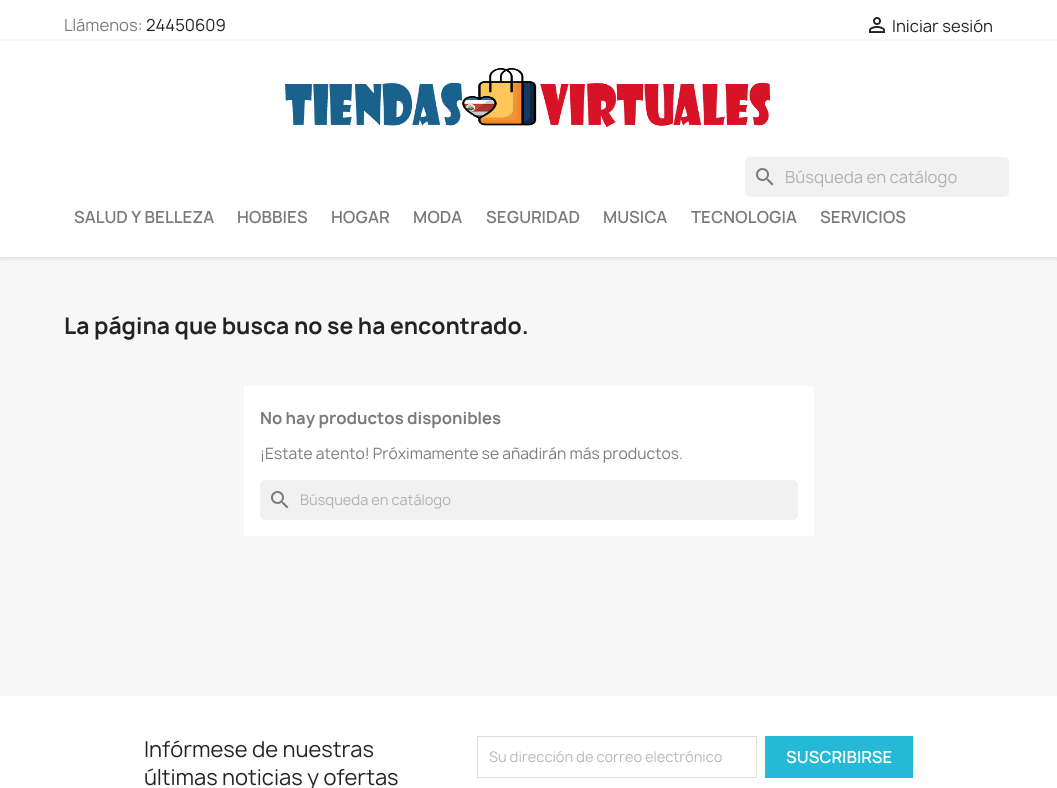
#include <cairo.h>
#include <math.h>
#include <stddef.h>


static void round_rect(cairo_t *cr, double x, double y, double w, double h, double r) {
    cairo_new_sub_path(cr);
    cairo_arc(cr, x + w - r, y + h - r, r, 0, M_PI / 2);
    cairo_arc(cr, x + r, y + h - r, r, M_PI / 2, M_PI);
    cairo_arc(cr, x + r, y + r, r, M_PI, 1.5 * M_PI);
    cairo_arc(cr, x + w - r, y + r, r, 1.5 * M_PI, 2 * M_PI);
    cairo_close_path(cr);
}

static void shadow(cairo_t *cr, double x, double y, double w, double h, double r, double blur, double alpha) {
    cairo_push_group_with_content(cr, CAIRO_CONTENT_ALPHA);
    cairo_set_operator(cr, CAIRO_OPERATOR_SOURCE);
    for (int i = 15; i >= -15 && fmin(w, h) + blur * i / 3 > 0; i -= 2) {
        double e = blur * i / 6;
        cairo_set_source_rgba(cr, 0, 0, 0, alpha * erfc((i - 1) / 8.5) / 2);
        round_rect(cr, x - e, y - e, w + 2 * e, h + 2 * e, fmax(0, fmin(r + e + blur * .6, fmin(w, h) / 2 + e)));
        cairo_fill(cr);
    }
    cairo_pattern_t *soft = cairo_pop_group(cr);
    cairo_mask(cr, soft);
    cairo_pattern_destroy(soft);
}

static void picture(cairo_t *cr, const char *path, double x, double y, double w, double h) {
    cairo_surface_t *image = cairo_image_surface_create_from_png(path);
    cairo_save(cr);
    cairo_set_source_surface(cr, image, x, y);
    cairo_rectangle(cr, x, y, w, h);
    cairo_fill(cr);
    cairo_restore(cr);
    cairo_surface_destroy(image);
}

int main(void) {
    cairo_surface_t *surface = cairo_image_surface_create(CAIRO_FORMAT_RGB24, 1057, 788);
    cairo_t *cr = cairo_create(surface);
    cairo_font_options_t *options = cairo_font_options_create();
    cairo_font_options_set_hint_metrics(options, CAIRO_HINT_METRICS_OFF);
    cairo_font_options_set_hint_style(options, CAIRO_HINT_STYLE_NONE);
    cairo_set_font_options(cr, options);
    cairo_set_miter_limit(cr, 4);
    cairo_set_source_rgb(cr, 1, 1, 1);
    cairo_paint(cr);
    cairo_set_source_rgb(cr, 0.965, 0.965, 0.965);
    cairo_rectangle(cr, 0, 257, 1057, 439);
    cairo_fill(cr);
    cairo_save(cr);
    cairo_rectangle(cr, 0, 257, 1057, 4);
    cairo_clip(cr);
    cairo_set_source_rgb(cr, 0, 0, 0);
    shadow(cr, 0, 2, 1057, 257, 0, 2.5, 0.11);
    cairo_restore(cr);
    cairo_rectangle(cr, 0, 39, 1057, 2);
    cairo_fill(cr);
    cairo_select_font_face(cr, "Manrope", CAIRO_FONT_SLANT_NORMAL, CAIRO_FONT_WEIGHT_NORMAL);
    cairo_set_font_size(cr, 16);
    cairo_set_source_rgb(cr, 0.478, 0.478, 0.478);
    cairo_move_to(cr, 64, 31);
    cairo_show_text(cr, "Llámenos:");
    cairo_set_source_rgb(cr, 0.137, 0.137, 0.137);
    cairo_move_to(cr, 146, 31);
    cairo_show_text(cr, "24450609");
    picture(cr, "img1.png", 869, 17, 16, 16);
    cairo_move_to(cr, 892, 32);
    cairo_show_text(cr, "Iniciar sesión");
    picture(cr, "img2.png", 283, 68, 488, 62);
    cairo_set_source_rgb(cr, 0.945, 0.945, 0.945);
    round_rect(cr, 745, 157, 264, 40, 5);
    cairo_fill(cr);
    picture(cr, "img3.png", 756, 168, 18, 18);
    cairo_set_source_rgb(cr, 0.694, 0.694, 0.694);
    cairo_move_to(cr, 785, 183);
    cairo_show_text(cr, "Búsqueda en catálogo");
    cairo_select_font_face(cr, "Manrope SemiBold", CAIRO_FONT_SLANT_NORMAL, CAIRO_FONT_WEIGHT_NORMAL);
    cairo_set_source_rgb(cr, 0.478, 0.478, 0.478);
    cairo_move_to(cr, 74, 223);
    cairo_show_text(cr, "SALUD Y BELLEZA");
    cairo_move_to(cr, 237, 223);
    cairo_show_text(cr, "HOBBIES");
    cairo_move_to(cr, 331, 223);
    cairo_show_text(cr, "HOGAR");
    cairo_move_to(cr, 413, 223);
    cairo_show_text(cr, "MODA");
    cairo_move_to(cr, 486, 223);
    cairo_show_text(cr, "SEGURIDAD");
    cairo_move_to(cr, 603, 223);
    cairo_show_text(cr, "MUSICA");
    cairo_move_to(cr, 691, 223);
    cairo_show_text(cr, "TECNOLOGIA");
    cairo_move_to(cr, 820, 223);
    cairo_show_text(cr, "SERVICIOS");
    cairo_select_font_face(cr, "Manrope", CAIRO_FONT_SLANT_NORMAL, CAIRO_FONT_WEIGHT_BOLD);
    cairo_set_font_size(cr, 22);
    cairo_set_source_rgb(cr, 0.137, 0.137, 0.137);
    cairo_move_to(cr, 64, 334);
    cairo_show_text(cr, "La página que busca no se ha encontrado.");
    cairo_set_source_rgb(cr, 1, 1, 1);
    cairo_rectangle(cr, 244, 386, 570, 150);
    cairo_fill(cr);
    cairo_set_font_size(cr, 16);
    cairo_set_source_rgb(cr, 0.478, 0.478, 0.478);
    cairo_move_to(cr, 260, 424);
    cairo_show_text(cr, "No hay productos disponibles");
    cairo_select_font_face(cr, "Manrope", CAIRO_FONT_SLANT_NORMAL, CAIRO_FONT_WEIGHT_NORMAL);
    cairo_set_font_size(cr, 15);
    cairo_move_to(cr, 260, 459);
    cairo_show_text(cr, "¡Estate atento! Próximamente se añadirán más productos.");
    cairo_set_source_rgb(cr, 0.945, 0.945, 0.945);
    round_rect(cr, 260, 480, 538, 40, 5);
    cairo_fill(cr);
    picture(cr, "img3.png", 271, 491, 18, 18);
    cairo_set_font_size(cr, 14);
    cairo_set_source_rgb(cr, 0.694, 0.694, 0.694);
    cairo_move_to(cr, 300, 505);
    cairo_show_text(cr, "Búsqueda en catálogo");
    cairo_set_font_size(cr, 21);
    cairo_set_source_rgb(cr, 0.137, 0.137, 0.137);
    cairo_move_to(cr, 144, 757);
    cairo_show_text(cr, "Infórmese de nuestras");
    cairo_move_to(cr, 144, 785);
    cairo_show_text(cr, "últimas noticias y ofertas");
    cairo_rectangle(cr, 477.5, 736.5, 279, 41);
    cairo_set_source_rgb(cr, 0.867, 0.867, 0.867);
    cairo_set_line_width(cr, 1);
    cairo_stroke(cr);
    cairo_set_font_size(cr, 14);
    cairo_set_source_rgb(cr, 0.718, 0.718, 0.718);
    cairo_move_to(cr, 489, 762);
    cairo_show_text(cr, "Su dirección de correo electrónico");
    cairo_set_source_rgb(cr, 0.141, 0.725, 0.843);
    cairo_rectangle(cr, 765, 736, 148, 42);
    cairo_fill(cr);
    cairo_select_font_face(cr, "Manrope SemiBold", CAIRO_FONT_SLANT_NORMAL, CAIRO_FONT_WEIGHT_NORMAL);
    cairo_set_font_size(cr, 16);
    cairo_set_source_rgb(cr, 1, 1, 1);
    cairo_move_to(cr, 786, 763);
    cairo_show_text(cr, "SUSCRIBIRSE");
    cairo_surface_write_to_png(surface, "page.png");
    cairo_font_options_destroy(options);
    cairo_destroy(cr);
    cairo_surface_destroy(surface);
    return 0;
}
